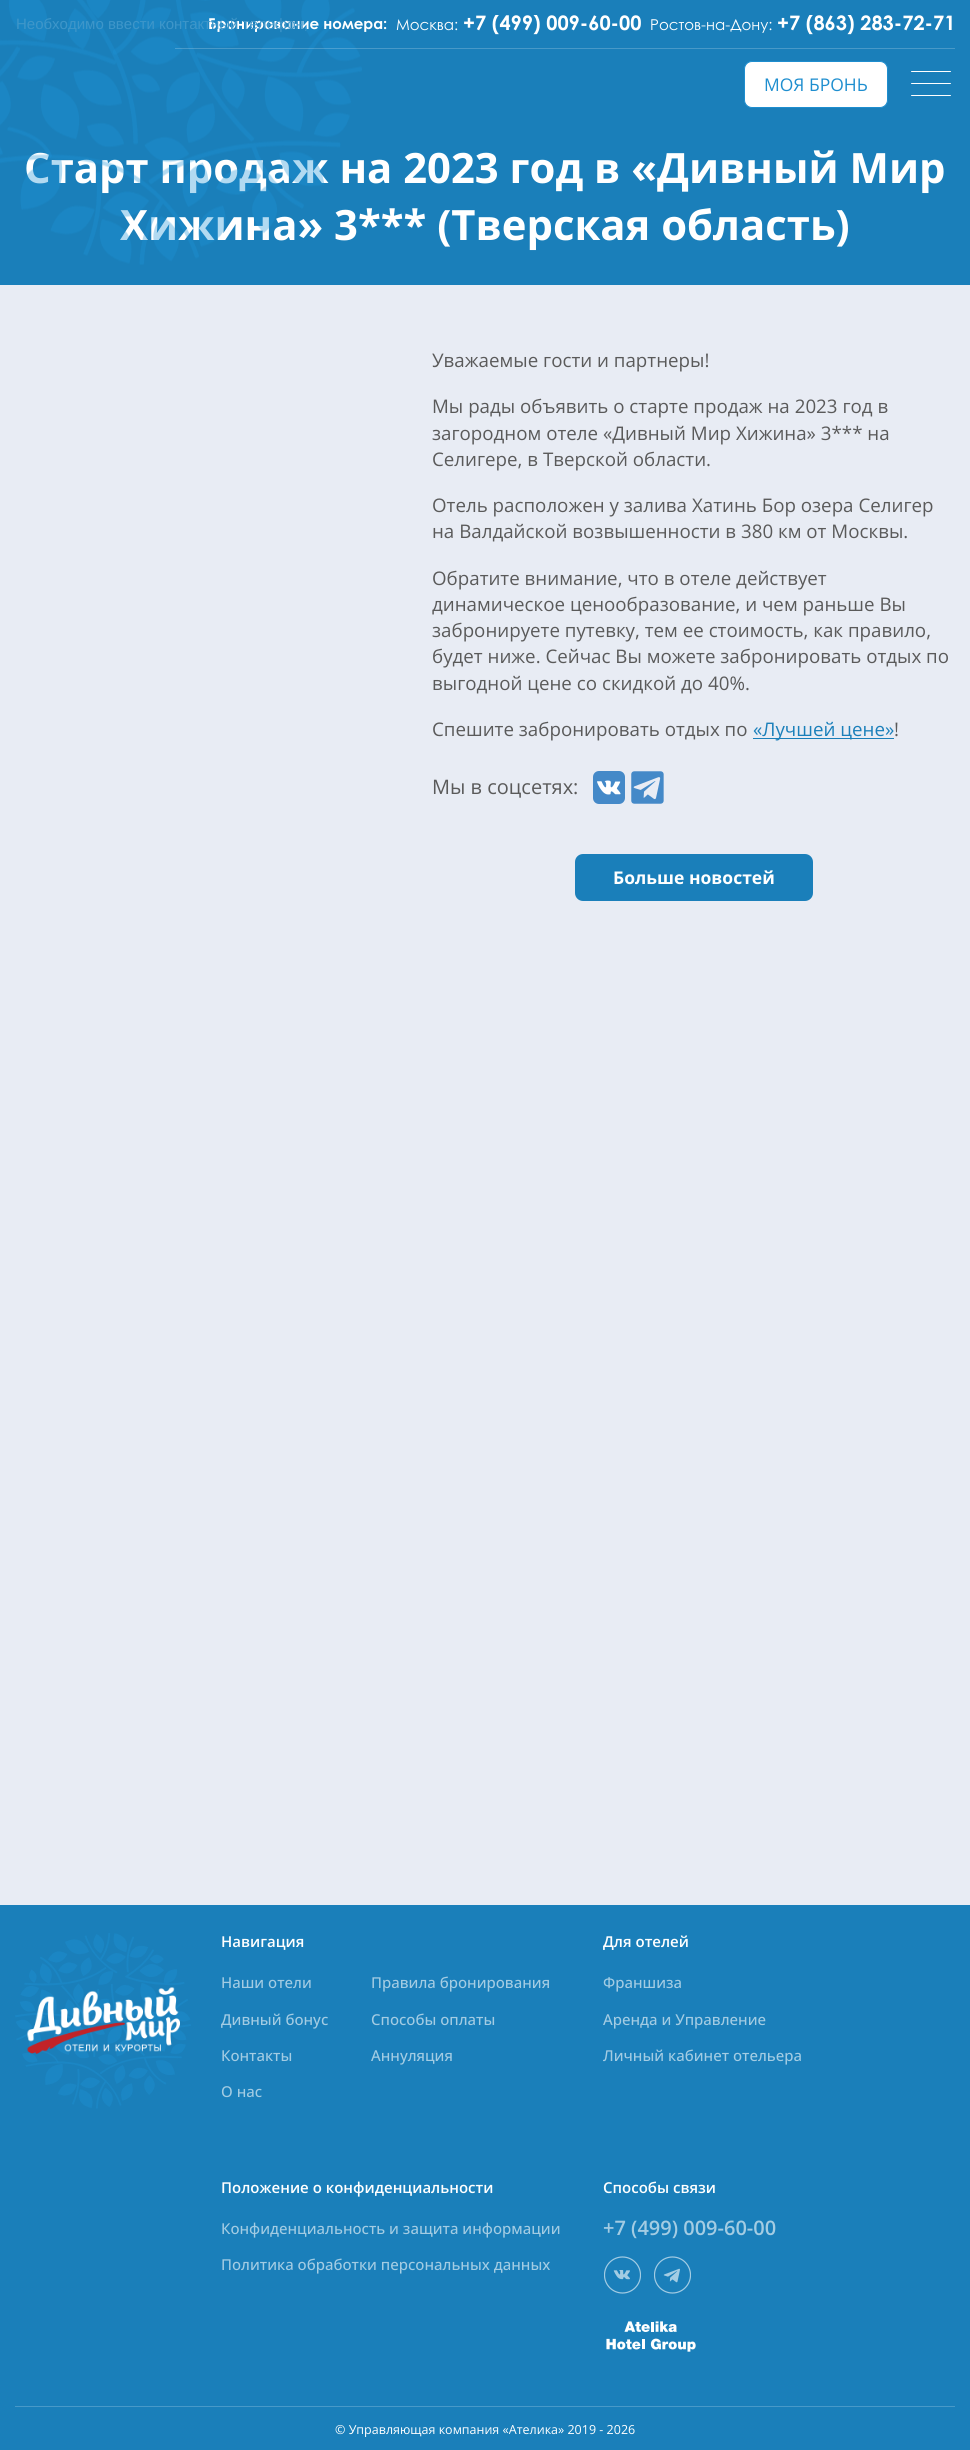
#include <cairo.h>
#include <math.h>
#include <stddef.h>


static void round_rect(cairo_t *cr, double x, double y, double w, double h, double r) {
    cairo_new_sub_path(cr);
    cairo_arc(cr, x + w - r, y + h - r, r, 0, M_PI / 2);
    cairo_arc(cr, x + r, y + h - r, r, M_PI / 2, M_PI);
    cairo_arc(cr, x + r, y + r, r, M_PI, 1.5 * M_PI);
    cairo_arc(cr, x + w - r, y + r, r, 1.5 * M_PI, 2 * M_PI);
    cairo_close_path(cr);
}

static void picture(cairo_t *cr, const char *path, double x, double y, double w, double h) {
    cairo_surface_t *image = cairo_image_surface_create_from_png(path);
    cairo_save(cr);
    cairo_set_source_surface(cr, image, x, y);
    cairo_rectangle(cr, x, y, w, h);
    cairo_fill(cr);
    cairo_restore(cr);
    cairo_surface_destroy(image);
}

int main(void) {
    cairo_surface_t *surface = cairo_image_surface_create(CAIRO_FORMAT_RGB24, 970, 2450);
    cairo_t *cr = cairo_create(surface);
    cairo_font_options_t *options = cairo_font_options_create();
    cairo_font_options_set_hint_metrics(options, CAIRO_HINT_METRICS_OFF);
    cairo_font_options_set_hint_style(options, CAIRO_HINT_STYLE_NONE);
    cairo_set_font_options(cr, options);
    cairo_set_miter_limit(cr, 4);
    cairo_set_source_rgb(cr, 0.91, 0.925, 0.957);
    cairo_paint(cr);
    cairo_set_source_rgb(cr, 0.102, 0.498, 0.729);
    cairo_rectangle(cr, 0, 0, 970, 285);
    cairo_fill(cr);
    cairo_select_font_face(cr, "Open Sans", CAIRO_FONT_SLANT_NORMAL, CAIRO_FONT_WEIGHT_BOLD);
    cairo_set_font_size(cr, 41.8);
    cairo_set_source_rgb(cr, 1, 1, 1);
    cairo_move_to(cr, 24, 183);
    cairo_show_text(cr, "Старт продаж на 2023 год в «Дивный Мир");
    cairo_move_to(cr, 120, 240);
    cairo_show_text(cr, "Хижина» 3*** (Тверская область)");
    picture(cr, "img1.png", 0, 0, 362, 265);
    cairo_select_font_face(cr, "Century Gothic", CAIRO_FONT_SLANT_NORMAL, CAIRO_FONT_WEIGHT_BOLD);
    cairo_set_font_size(cr, 15);
    cairo_move_to(cr, 208, 29);
    cairo_show_text(cr, "Бронирование номера:");
    cairo_select_font_face(cr, "Century Gothic", CAIRO_FONT_SLANT_NORMAL, CAIRO_FONT_WEIGHT_NORMAL);
    cairo_move_to(cr, 396, 30);
    cairo_show_text(cr, "Москва:");
    cairo_select_font_face(cr, "Century Gothic", CAIRO_FONT_SLANT_NORMAL, CAIRO_FONT_WEIGHT_BOLD);
    cairo_set_font_size(cr, 20);
    cairo_move_to(cr, 463, 30);
    cairo_show_text(cr, "+7 (499) 009-60-00");
    cairo_select_font_face(cr, "Century Gothic", CAIRO_FONT_SLANT_NORMAL, CAIRO_FONT_WEIGHT_NORMAL);
    cairo_set_font_size(cr, 15);
    cairo_move_to(cr, 650, 30);
    cairo_show_text(cr, "Ростов-на-Дону:");
    cairo_select_font_face(cr, "Century Gothic", CAIRO_FONT_SLANT_NORMAL, CAIRO_FONT_WEIGHT_BOLD);
    cairo_set_font_size(cr, 20);
    cairo_move_to(cr, 777, 30);
    cairo_show_text(cr, "+7 (863) 283-72-71");
    cairo_set_source_rgba(cr, 1, 1, 1, 0.2);
    cairo_rectangle(cr, 175, 48, 780, 1);
    cairo_fill(cr);
    cairo_set_source_rgb(cr, 1, 1, 1);
    round_rect(cr, 744.5, 61.5, 143, 46, 7.5);
    cairo_fill_preserve(cr);
    cairo_set_source_rgb(cr, 0.118, 0.557, 0.812);
    cairo_set_line_width(cr, 1);
    cairo_stroke(cr);
    cairo_select_font_face(cr, "Open Sans", CAIRO_FONT_SLANT_NORMAL, CAIRO_FONT_WEIGHT_NORMAL);
    cairo_set_font_size(cr, 17.5);
    cairo_move_to(cr, 764, 91);
    cairo_show_text(cr, "МОЯ БРОНЬ");
    cairo_set_source_rgb(cr, 1, 1, 1);
    round_rect(cr, 911, 71, 40, 1, 0.5);
    cairo_fill(cr);
    round_rect(cr, 911, 83, 40, 1, 0.5);
    cairo_fill(cr);
    round_rect(cr, 911, 95, 40, 1, 0.5);
    cairo_fill(cr);
    cairo_set_font_size(cr, 18.75);
    cairo_set_source_rgb(cr, 0.353, 0.353, 0.353);
    cairo_move_to(cr, 432, 367);
    cairo_show_text(cr, "Уважаемые гости и партнеры!");
    cairo_move_to(cr, 432, 413);
    cairo_show_text(cr, "Мы рады объявить о старте продаж на 2023 год в");
    cairo_move_to(cr, 432, 440);
    cairo_show_text(cr, "загородном отеле «Дивный Мир Хижина» 3*** на");
    cairo_move_to(cr, 432, 466);
    cairo_show_text(cr, "Селигере, в Тверской области.");
    cairo_move_to(cr, 432, 512);
    cairo_show_text(cr, "Отель расположен у залива Хатинь Бор озера Селигер");
    cairo_move_to(cr, 432, 538);
    cairo_show_text(cr, "на Валдайской возвышенности в 380 км от Москвы.");
    cairo_move_to(cr, 432, 585);
    cairo_show_text(cr, "Обратите внимание, что в отеле действует");
    cairo_move_to(cr, 432, 611);
    cairo_show_text(cr, "динамическое ценообразование, и чем раньше Вы");
    cairo_move_to(cr, 432, 637);
    cairo_show_text(cr, "забронируете путевку, тем ее стоимость, как правило,");
    cairo_move_to(cr, 432, 663);
    cairo_show_text(cr, "будет ниже. Сейчас Вы можете забронировать отдых по");
    cairo_move_to(cr, 432, 690);
    cairo_show_text(cr, "выгодной цене со скидкой до 40%.");
    cairo_move_to(cr, 432, 736);
    cairo_show_text(cr, "Спешите забронировать отдых по");
    cairo_set_source_rgb(cr, 0.102, 0.498, 0.729);
    cairo_rectangle(cr, 753, 738, 141, 1);
    cairo_fill(cr);
    cairo_move_to(cr, 753, 736);
    cairo_show_text(cr, "«Лучшей цене»");
    cairo_set_source_rgb(cr, 0.353, 0.353, 0.353);
    cairo_move_to(cr, 894, 736);
    cairo_show_text(cr, "!");
    cairo_set_font_size(cr, 20);
    cairo_move_to(cr, 432, 794);
    cairo_show_text(cr, "Мы в соцсетях:");
    picture(cr, "img2.png", 593, 771, 32, 33);
    picture(cr, "img3.png", 631, 771, 33, 33);
    cairo_set_source_rgb(cr, 0.102, 0.498, 0.729);
    round_rect(cr, 575, 854, 238, 47, 8);
    cairo_fill(cr);
    cairo_select_font_face(cr, "Open Sans", CAIRO_FONT_SLANT_NORMAL, CAIRO_FONT_WEIGHT_BOLD);
    cairo_set_font_size(cr, 17.5);
    cairo_set_source_rgb(cr, 1, 1, 1);
    cairo_move_to(cr, 613, 884);
    cairo_show_text(cr, "Больше новостей");
    cairo_set_source_rgb(cr, 0.102, 0.498, 0.729);
    cairo_rectangle(cr, 0, 1905, 970, 545);
    cairo_fill(cr);
    picture(cr, "img4.png", 15, 1933, 176, 176);
    picture(cr, "img5.png", 27, 1987, 153, 67);
    cairo_select_font_face(cr, "Open Sans SemiBold", CAIRO_FONT_SLANT_NORMAL, CAIRO_FONT_WEIGHT_NORMAL);
    cairo_set_font_size(cr, 15);
    cairo_set_source_rgb(cr, 1, 1, 1);
    cairo_move_to(cr, 221, 1947);
    cairo_show_text(cr, "Навигация");
    cairo_select_font_face(cr, "Open Sans Medium", CAIRO_FONT_SLANT_NORMAL, CAIRO_FONT_WEIGHT_NORMAL);
    cairo_set_source_rgb(cr, 0.639, 0.8, 0.89);
    cairo_move_to(cr, 221, 1988);
    cairo_show_text(cr, "Наши отели");
    cairo_move_to(cr, 221, 2025);
    cairo_show_text(cr, "Дивный бонус");
    cairo_move_to(cr, 221, 2061);
    cairo_show_text(cr, "Контакты");
    cairo_move_to(cr, 221, 2097);
    cairo_show_text(cr, "О нас");
    cairo_move_to(cr, 371, 1988);
    cairo_show_text(cr, "Правила бронирования");
    cairo_move_to(cr, 371, 2025);
    cairo_show_text(cr, "Способы оплаты");
    cairo_move_to(cr, 371, 2061);
    cairo_show_text(cr, "Аннуляция");
    cairo_select_font_face(cr, "Open Sans SemiBold", CAIRO_FONT_SLANT_NORMAL, CAIRO_FONT_WEIGHT_NORMAL);
    cairo_set_source_rgb(cr, 1, 1, 1);
    cairo_move_to(cr, 603, 1947);
    cairo_show_text(cr, "Для отелей");
    cairo_select_font_face(cr, "Open Sans Medium", CAIRO_FONT_SLANT_NORMAL, CAIRO_FONT_WEIGHT_NORMAL);
    cairo_set_source_rgb(cr, 0.639, 0.8, 0.89);
    cairo_move_to(cr, 603, 1988);
    cairo_show_text(cr, "Франшиза");
    cairo_move_to(cr, 603, 2025);
    cairo_show_text(cr, "Аренда и Управление");
    cairo_move_to(cr, 603, 2061);
    cairo_show_text(cr, "Личный кабинет отельера");
    cairo_select_font_face(cr, "Open Sans SemiBold", CAIRO_FONT_SLANT_NORMAL, CAIRO_FONT_WEIGHT_NORMAL);
    cairo_set_source_rgb(cr, 1, 1, 1);
    cairo_move_to(cr, 221, 2193);
    cairo_show_text(cr, "Положение о конфиденциальности");
    cairo_select_font_face(cr, "Open Sans Medium", CAIRO_FONT_SLANT_NORMAL, CAIRO_FONT_WEIGHT_NORMAL);
    cairo_set_source_rgb(cr, 0.639, 0.8, 0.89);
    cairo_move_to(cr, 221, 2234);
    cairo_show_text(cr, "Конфиденциальность и защита информации");
    cairo_move_to(cr, 221, 2270);
    cairo_show_text(cr, "Политика обработки персональных данных");
    cairo_select_font_face(cr, "Open Sans SemiBold", CAIRO_FONT_SLANT_NORMAL, CAIRO_FONT_WEIGHT_NORMAL);
    cairo_set_source_rgb(cr, 1, 1, 1);
    cairo_move_to(cr, 603, 2193);
    cairo_show_text(cr, "Способы связи");
    cairo_set_font_size(cr, 20);
    cairo_set_source_rgb(cr, 0.639, 0.8, 0.89);
    cairo_move_to(cr, 603, 2235);
    cairo_show_text(cr, "+7 (499) 009-60-00");
    picture(cr, "img6.png", 604, 2256, 37, 38);
    picture(cr, "img7.png", 654, 2256, 37, 38);
    picture(cr, "img8.png", 606, 2321, 90, 31);
    cairo_set_source_rgb(cr, 0.282, 0.6, 0.784);
    cairo_rectangle(cr, 15, 2406, 940, 1);
    cairo_fill(cr);
    cairo_select_font_face(cr, "Open Sans", CAIRO_FONT_SLANT_NORMAL, CAIRO_FONT_WEIGHT_NORMAL);
    cairo_set_font_size(cr, 12.5);
    cairo_set_source_rgb(cr, 1, 1, 1);
    cairo_move_to(cr, 335, 2434);
    cairo_show_text(cr, "© Управляющая компания «Ателика» 2019 - 2026");
    cairo_select_font_face(cr, "Liberation Sans", CAIRO_FONT_SLANT_NORMAL, CAIRO_FONT_WEIGHT_NORMAL);
    cairo_set_font_size(cr, 15);
    cairo_set_source_rgb(cr, 0.243, 0.588, 0.788);
    cairo_move_to(cr, 16, 29);
    cairo_show_text(cr, "Необходимо ввести контактный телефон,");
    cairo_surface_write_to_png(surface, "page.png");
    cairo_font_options_destroy(options);
    cairo_destroy(cr);
    cairo_surface_destroy(surface);
    return 0;
}
